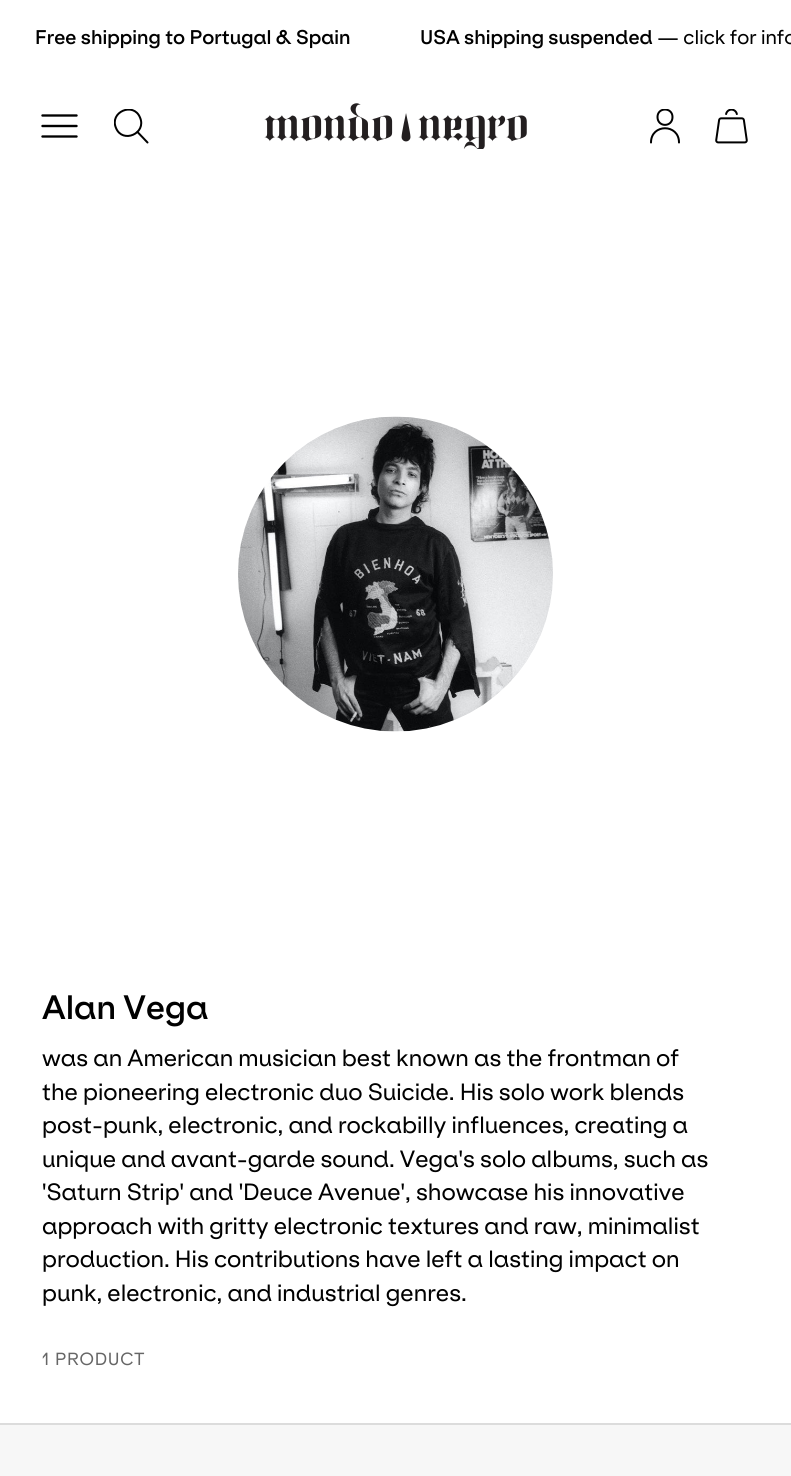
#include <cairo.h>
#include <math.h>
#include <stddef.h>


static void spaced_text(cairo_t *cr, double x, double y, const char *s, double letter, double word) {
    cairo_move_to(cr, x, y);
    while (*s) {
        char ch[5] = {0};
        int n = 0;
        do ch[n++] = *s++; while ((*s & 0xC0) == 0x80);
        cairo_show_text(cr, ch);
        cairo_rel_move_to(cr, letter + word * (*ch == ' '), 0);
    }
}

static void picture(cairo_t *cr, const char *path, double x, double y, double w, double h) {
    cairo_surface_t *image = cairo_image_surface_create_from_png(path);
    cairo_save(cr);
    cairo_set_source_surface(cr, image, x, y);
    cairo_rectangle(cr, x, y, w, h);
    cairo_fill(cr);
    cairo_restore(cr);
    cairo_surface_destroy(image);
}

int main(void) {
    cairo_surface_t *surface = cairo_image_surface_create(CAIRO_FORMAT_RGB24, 791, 1476);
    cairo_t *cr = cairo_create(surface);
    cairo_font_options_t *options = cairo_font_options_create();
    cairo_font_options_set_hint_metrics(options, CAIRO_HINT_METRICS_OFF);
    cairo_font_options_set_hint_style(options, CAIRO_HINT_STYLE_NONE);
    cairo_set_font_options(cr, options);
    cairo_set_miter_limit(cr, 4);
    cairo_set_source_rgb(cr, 0.965, 0.965, 0.965);
    cairo_paint(cr);
    cairo_set_source_rgb(cr, 1, 1, 1);
    cairo_rectangle(cr, 0, 0, 791, 1423);
    cairo_fill(cr);
    cairo_select_font_face(cr, "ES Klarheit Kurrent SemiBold", CAIRO_FONT_SLANT_NORMAL, CAIRO_FONT_WEIGHT_NORMAL);
    cairo_set_font_size(cr, 18.9);
    cairo_set_source_rgb(cr, 0, 0, 0);
    cairo_move_to(cr, 35, 44);
    cairo_show_text(cr, "Free shipping to Portugal & Spain");
    cairo_move_to(cr, 420, 44);
    cairo_show_text(cr, "USA shipping suspended");
    cairo_select_font_face(cr, "ES Klarheit Kurrent", CAIRO_FONT_SLANT_NORMAL, CAIRO_FONT_WEIGHT_NORMAL);
    cairo_move_to(cr, 657, 44);
    cairo_show_text(cr, "— click for info");
    cairo_new_path(cr);
    cairo_move_to(cr, 42.5, 136.5);
    cairo_line_to(cr, 76.5, 136.5);
    cairo_move_to(cr, 42.5, 126);
    cairo_line_to(cr, 76.5, 126);
    cairo_move_to(cr, 42.5, 115.5);
    cairo_line_to(cr, 76.5, 115.5);
    cairo_set_line_width(cr, 2.4);
    cairo_set_line_cap(cr, CAIRO_LINE_CAP_ROUND);
    cairo_set_line_join(cr, CAIRO_LINE_JOIN_ROUND);
    cairo_stroke(cr);
    cairo_save(cr);
    cairo_rectangle(cr, 114, 109, 35, 35);
    cairo_clip(cr);
    cairo_new_path(cr);
    cairo_move_to(cr, 116, 128);
    cairo_curve_to(cr, 122.5, 144, 147, 133.5, 140, 117.5);
    cairo_curve_to(cr, 133.5, 101.5, 109, 112, 116, 128);
    cairo_close_path(cr);
    cairo_set_line_width(cr, 2);
    cairo_stroke(cr);
    cairo_restore(cr);
    cairo_new_path(cr);
    cairo_move_to(cr, 137.5, 132);
    cairo_line_to(cr, 147.5, 142.5);
    cairo_set_line_width(cr, 2);
    cairo_stroke(cr);
    picture(cr, "img1.png", 264, 103, 263, 46);
    cairo_save(cr);
    cairo_rectangle(cr, 648, 109, 35, 35);
    cairo_clip(cr);
    cairo_new_path(cr);
    cairo_move_to(cr, 657.5, 117);
    cairo_curve_to(cr, 657.5, 127.5, 672.5, 127.5, 672.5, 117);
    cairo_curve_to(cr, 672.5, 107, 657.5, 107, 657.5, 117);
    cairo_close_path(cr);
    cairo_stroke(cr);
    cairo_restore(cr);
    cairo_new_path(cr);
    cairo_move_to(cr, 651, 142.5);
    cairo_curve_to(cr, 651, 123.5, 679, 123.5, 679, 142.5);
    cairo_stroke(cr);
    picture(cr, "img2.png", 715, 109, 33, 35);
    picture(cr, "img3.png", 238, 416, 315, 316);
    cairo_select_font_face(cr, "ES Klarheit Kurrent SemiBold", CAIRO_FONT_SLANT_NORMAL, CAIRO_FONT_WEIGHT_NORMAL);
    cairo_set_font_size(cr, 32.25);
    cairo_move_to(cr, 42, 1019);
    cairo_show_text(cr, "Alan Vega");
    cairo_select_font_face(cr, "ES Klarheit Kurrent", CAIRO_FONT_SLANT_NORMAL, CAIRO_FONT_WEIGHT_NORMAL);
    cairo_set_font_size(cr, 22.4);
    cairo_move_to(cr, 42, 1066);
    cairo_show_text(cr, "was an American musician best known as the frontman of");
    cairo_move_to(cr, 42, 1100);
    cairo_show_text(cr, "the pioneering electronic duo Suicide. His solo work blends");
    cairo_move_to(cr, 42, 1133);
    cairo_show_text(cr, "post-punk, electronic, and rockabilly influences, creating a");
    cairo_move_to(cr, 42, 1167);
    cairo_show_text(cr, "unique and avant-garde sound. Vega's solo albums, such as");
    cairo_move_to(cr, 42, 1200);
    cairo_show_text(cr, "'Saturn Strip' and 'Deuce Avenue', showcase his innovative");
    cairo_move_to(cr, 42, 1234);
    cairo_show_text(cr, "approach with gritty electronic textures and raw, minimalist");
    cairo_move_to(cr, 42, 1267);
    cairo_show_text(cr, "production. His contributions have left a lasting impact on");
    cairo_move_to(cr, 42, 1301);
    cairo_show_text(cr, "punk, electronic, and industrial genres.");
    cairo_set_font_size(cr, 16.75);
    cairo_set_source_rgb(cr, 0.4, 0.4, 0.4);
    spaced_text(cr, 42, 1365, "1 PRODUCT", 0.75, 0);
    cairo_set_source_rgb(cr, 0.863, 0.863, 0.863);
    cairo_rectangle(cr, 0, 1423, 791, 2);
    cairo_fill(cr);
    cairo_surface_write_to_png(surface, "page.png");
    cairo_font_options_destroy(options);
    cairo_destroy(cr);
    cairo_surface_destroy(surface);
    return 0;
}
